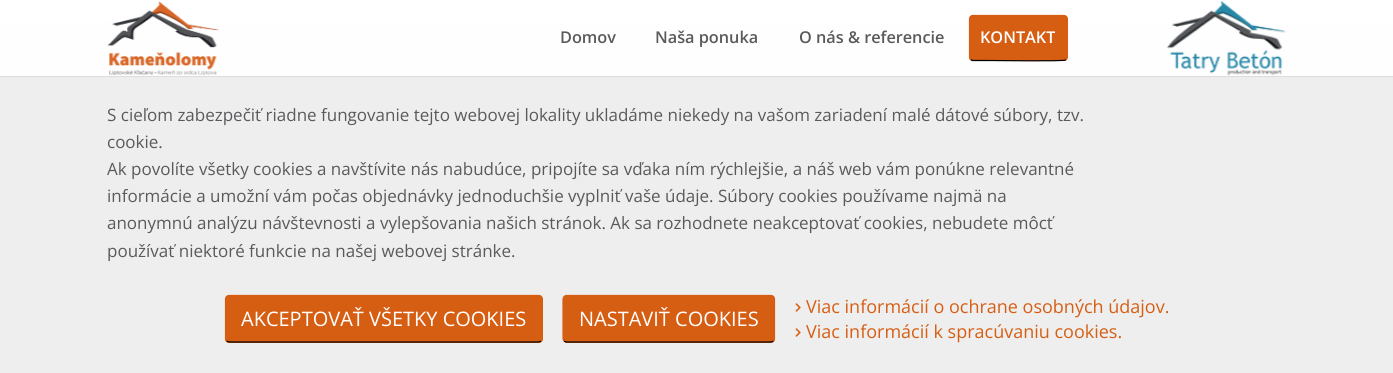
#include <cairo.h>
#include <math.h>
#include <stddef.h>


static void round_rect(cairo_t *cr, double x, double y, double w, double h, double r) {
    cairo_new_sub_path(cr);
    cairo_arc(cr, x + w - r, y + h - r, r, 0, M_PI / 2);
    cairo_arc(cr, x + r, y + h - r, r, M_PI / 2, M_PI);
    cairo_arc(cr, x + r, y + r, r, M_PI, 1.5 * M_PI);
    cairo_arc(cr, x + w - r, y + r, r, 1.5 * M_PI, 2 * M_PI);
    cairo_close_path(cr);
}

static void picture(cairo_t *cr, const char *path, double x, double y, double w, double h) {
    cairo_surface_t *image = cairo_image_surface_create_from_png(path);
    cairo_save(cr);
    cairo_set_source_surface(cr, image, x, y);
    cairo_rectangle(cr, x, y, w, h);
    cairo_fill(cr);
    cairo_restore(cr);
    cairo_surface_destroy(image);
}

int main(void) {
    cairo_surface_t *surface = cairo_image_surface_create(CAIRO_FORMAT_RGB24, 1393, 373);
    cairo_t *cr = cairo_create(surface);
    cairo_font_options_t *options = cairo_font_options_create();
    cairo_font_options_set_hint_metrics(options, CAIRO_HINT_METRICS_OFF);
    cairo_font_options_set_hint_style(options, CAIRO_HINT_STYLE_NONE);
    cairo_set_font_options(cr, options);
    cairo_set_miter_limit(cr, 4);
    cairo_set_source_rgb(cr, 1, 1, 1);
    cairo_paint(cr);
    cairo_set_source_rgb(cr, 0.933, 0.933, 0.933);
    cairo_rectangle(cr, 0, 24, 1393, 349);
    cairo_fill(cr);
    cairo_set_source_rgb(cr, 0.863, 0.863, 0.863);
    cairo_rectangle(cr, 0, 76, 1393, 1);
    cairo_fill(cr);
    cairo_set_source_rgb(cr, 0.8, 0.8, 0.8);
    cairo_rectangle(cr, 0, 23, 1393, 1);
    cairo_fill(cr);
    cairo_set_source_rgba(cr, 1, 1, 1, 0.95);
    cairo_rectangle(cr, 0, 23, 1393, 53);
    cairo_fill(cr);
    picture(cr, "img1.png", 107, 1, 113, 74);
    cairo_select_font_face(cr, "Open Sans SemiBold", CAIRO_FONT_SLANT_NORMAL, CAIRO_FONT_WEIGHT_NORMAL);
    cairo_set_font_size(cr, 16.25);
    cairo_set_source_rgb(cr, 0.357, 0.349, 0.361);
    cairo_move_to(cr, 560, 43);
    cairo_show_text(cr, "Domov");
    cairo_move_to(cr, 655, 43);
    cairo_show_text(cr, "Naša ponuka");
    cairo_move_to(cr, 799, 43);
    cairo_show_text(cr, "O nás & referencie");
    cairo_set_source_rgb(cr, 0.839, 0.369, 0.078);
    round_rect(cr, 969, 15, 99, 46, 4);
    cairo_fill(cr);
    cairo_new_path(cr);
    cairo_move_to(cr, 1066, 59.5);
    cairo_line_to(cr, 1065.5, 60);
    cairo_curve_to(cr, 1063.5, 61.5, 996, 60.5, 987.5, 60.5);
    cairo_line_to(cr, 972.5, 60.5);
    cairo_line_to(cr, 970.5, 59.5);
    cairo_set_source_rgb(cr, 0, 0, 0);
    cairo_set_line_width(cr, 1.2);
    cairo_stroke(cr);
    cairo_new_path(cr);
    cairo_move_to(cr, 970.5, 59.5);
    cairo_line_to(cr, 969.5, 57.5);
    cairo_line_to(cr, 969.5, 19);
    cairo_line_to(cr, 970.5, 16.5);
    cairo_line_to(cr, 972.5, 15.5);
    cairo_line_to(cr, 1064, 15.5);
    cairo_line_to(cr, 1066, 16.5);
    cairo_line_to(cr, 1067, 19);
    cairo_line_to(cr, 1067, 57.5);
    cairo_line_to(cr, 1066, 59.5);
    cairo_set_source_rgb(cr, 0.839, 0.369, 0.078);
    cairo_stroke(cr);
    cairo_set_source_rgb(cr, 1, 1, 1);
    cairo_move_to(cr, 980, 43);
    cairo_show_text(cr, "KONTAKT");
    picture(cr, "img2.png", 1167, 1, 119, 75);
    cairo_select_font_face(cr, "Open Sans", CAIRO_FONT_SLANT_NORMAL, CAIRO_FONT_WEIGHT_NORMAL);
    cairo_set_font_size(cr, 17);
    cairo_set_source_rgb(cr, 0.357, 0.349, 0.361);
    cairo_move_to(cr, 107, 121);
    cairo_show_text(cr, "S cieľom zabezpečiť riadne fungovanie tejto webovej lokality ukladáme niekedy na vašom zariadení malé dátové súbory, tzv.");
    cairo_move_to(cr, 107, 148);
    cairo_show_text(cr, "cookie.");
    cairo_move_to(cr, 107, 175);
    cairo_show_text(cr, "Ak povolíte všetky cookies a navštívite nás nabudúce, pripojíte sa vďaka ním rýchlejšie, a náš web vám ponúkne relevantné");
    cairo_move_to(cr, 107, 202);
    cairo_show_text(cr, "informácie a umožní vám počas objednávky jednoduchšie vyplniť vaše údaje. Súbory cookies používame najmä na");
    cairo_move_to(cr, 107, 229);
    cairo_show_text(cr, "anonymnú analýzu návštevnosti a vylepšovania našich stránok. Ak sa rozhodnete neakceptovať cookies, nebudete môcť");
    cairo_move_to(cr, 107, 257);
    cairo_show_text(cr, "používať niektoré funkcie na našej webovej stránke.");
    cairo_set_source_rgb(cr, 0.839, 0.369, 0.078);
    round_rect(cr, 225, 295, 318, 48, 4);
    cairo_fill(cr);
    cairo_new_path(cr);
    cairo_move_to(cr, 541, 341);
    cairo_line_to(cr, 539, 342);
    cairo_line_to(cr, 229, 342);
    cairo_line_to(cr, 226.5, 341);
    cairo_set_source_rgb(cr, 0, 0, 0);
    cairo_stroke(cr);
    cairo_new_path(cr);
    cairo_move_to(cr, 226.5, 341);
    cairo_line_to(cr, 225.5, 339);
    cairo_line_to(cr, 225.5, 299);
    cairo_line_to(cr, 226.5, 296.5);
    cairo_line_to(cr, 229, 295.5);
    cairo_line_to(cr, 539, 295.5);
    cairo_line_to(cr, 541, 296.5);
    cairo_line_to(cr, 542, 299);
    cairo_line_to(cr, 542, 339);
    cairo_line_to(cr, 541, 341);
    cairo_set_source_rgb(cr, 0.839, 0.369, 0.078);
    cairo_stroke(cr);
    cairo_set_font_size(cr, 20);
    cairo_set_source_rgb(cr, 1, 1, 1);
    cairo_move_to(cr, 241, 326);
    cairo_show_text(cr, "AKCEPTOVAŤ VŠETKY COOKIES");
    cairo_set_source_rgb(cr, 0.839, 0.369, 0.078);
    round_rect(cr, 563, 295, 212, 48, 4);
    cairo_fill(cr);
    cairo_new_path(cr);
    cairo_move_to(cr, 773.5, 341);
    cairo_line_to(cr, 771, 342);
    cairo_line_to(cr, 566, 342);
    cairo_line_to(cr, 564, 341);
    cairo_set_source_rgb(cr, 0, 0, 0);
    cairo_stroke(cr);
    cairo_new_path(cr);
    cairo_move_to(cr, 564, 341);
    cairo_line_to(cr, 563, 339);
    cairo_line_to(cr, 563, 299);
    cairo_line_to(cr, 564, 296.5);
    cairo_line_to(cr, 566, 295.5);
    cairo_line_to(cr, 771, 295.5);
    cairo_line_to(cr, 773.5, 296.5);
    cairo_line_to(cr, 774.5, 299);
    cairo_line_to(cr, 774.5, 339);
    cairo_line_to(cr, 773.5, 341);
    cairo_set_source_rgb(cr, 0.839, 0.369, 0.078);
    cairo_stroke(cr);
    cairo_set_source_rgb(cr, 1, 1, 1);
    cairo_move_to(cr, 579, 326);
    cairo_show_text(cr, "NASTAVIŤ COOKIES");
    picture(cr, "img3.png", 795, 303, 6, 9);
    cairo_set_font_size(cr, 18);
    cairo_set_source_rgb(cr, 0.839, 0.369, 0.078);
    cairo_move_to(cr, 806, 313);
    cairo_show_text(cr, "Viac informácií o ochrane osobných údajov.");
    picture(cr, "img3.png", 795, 328, 6, 9);
    cairo_move_to(cr, 806, 338);
    cairo_show_text(cr, "Viac informácií k spracúvaniu cookies.");
    cairo_surface_write_to_png(surface, "page.png");
    cairo_font_options_destroy(options);
    cairo_destroy(cr);
    cairo_surface_destroy(surface);
    return 0;
}
